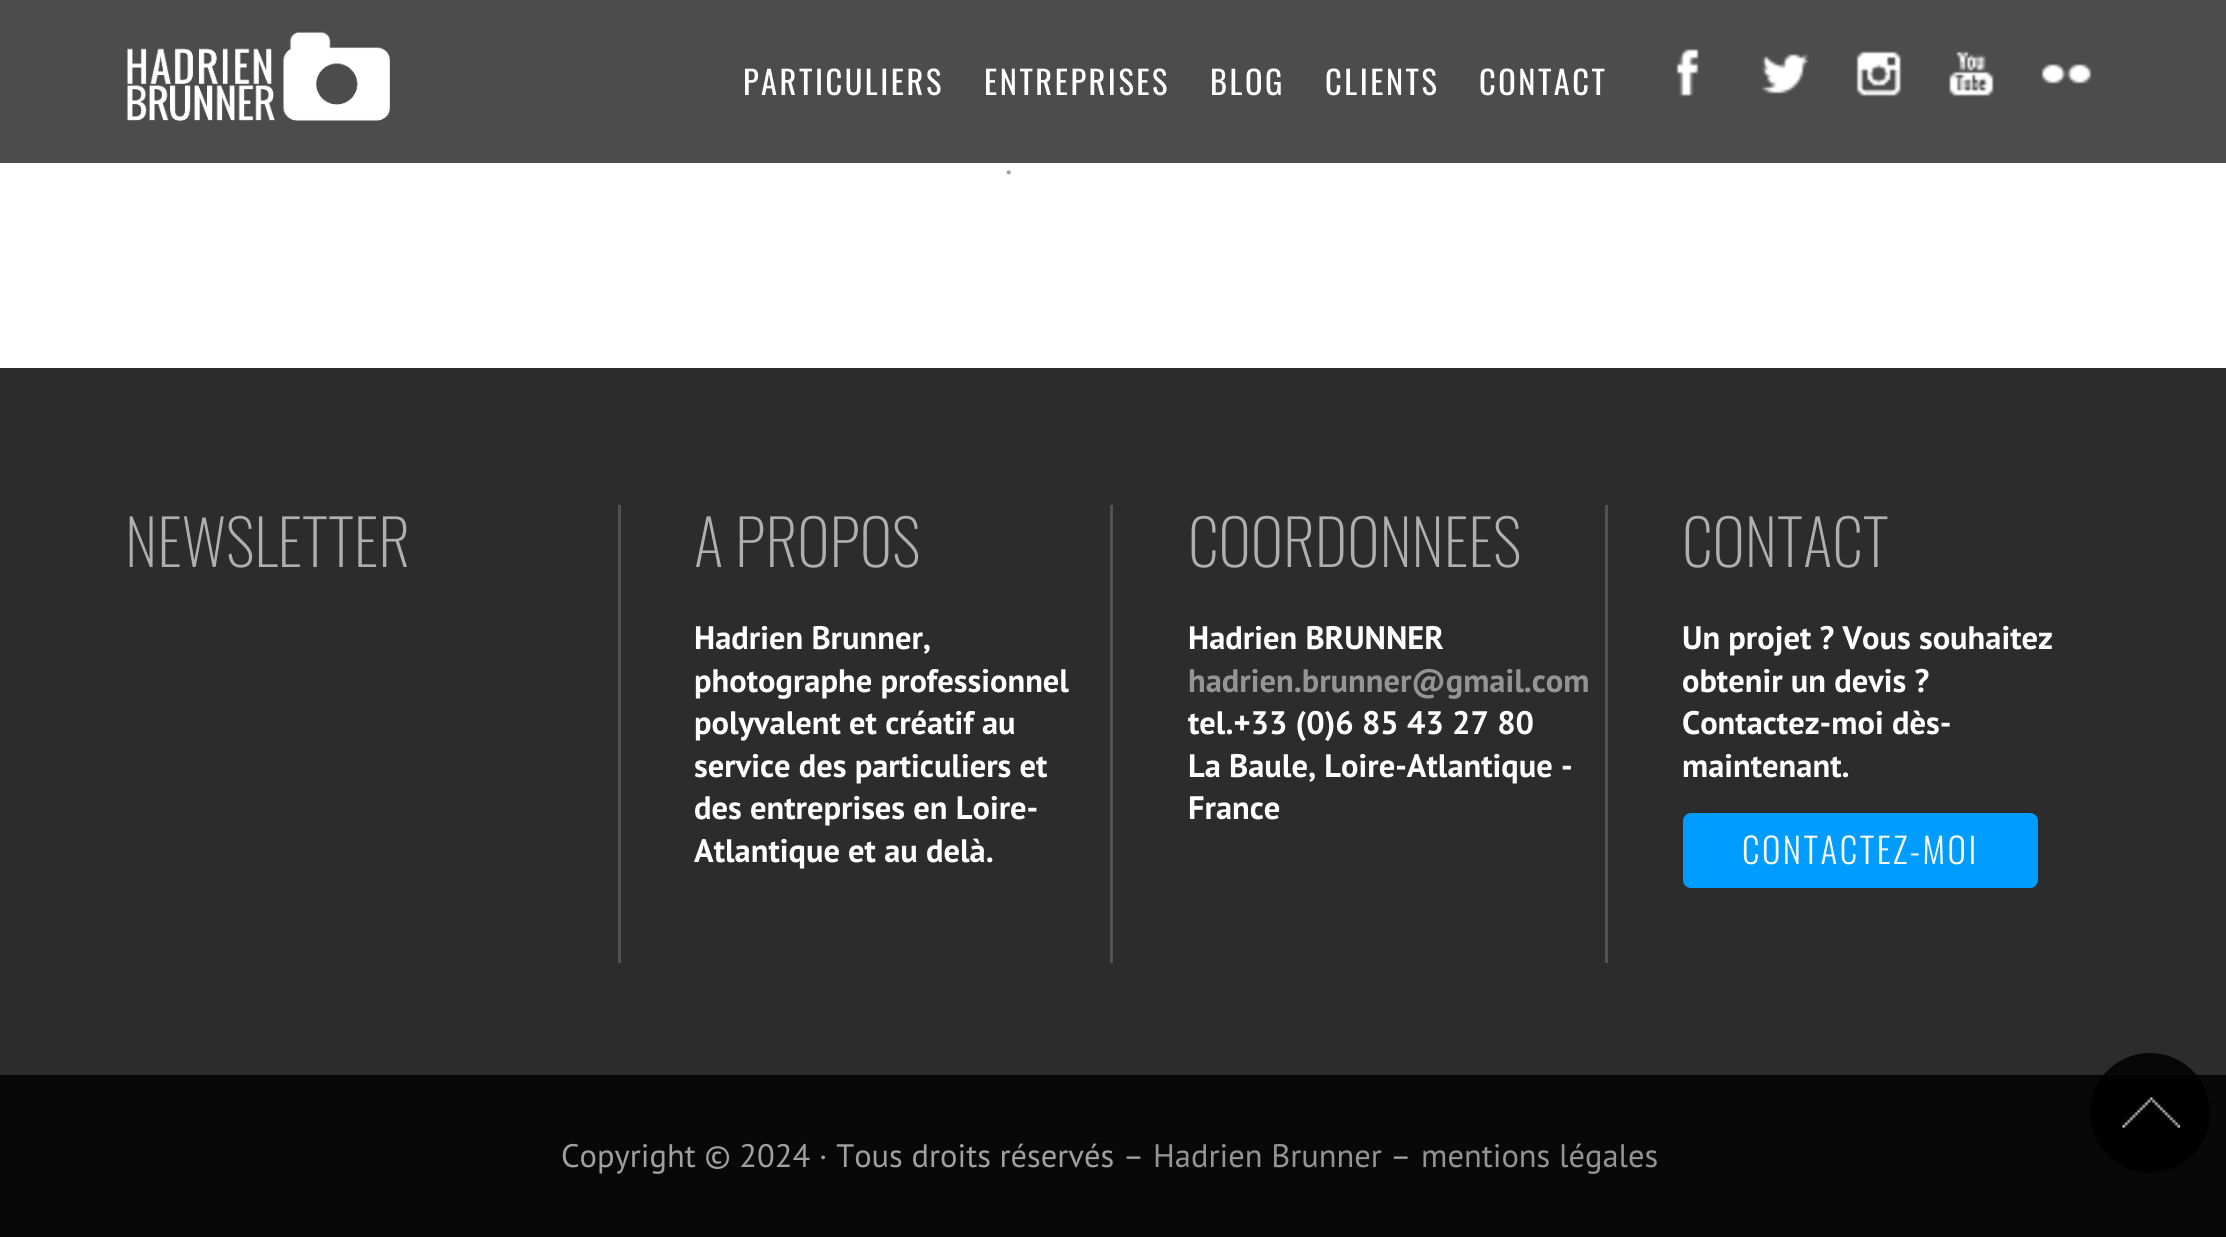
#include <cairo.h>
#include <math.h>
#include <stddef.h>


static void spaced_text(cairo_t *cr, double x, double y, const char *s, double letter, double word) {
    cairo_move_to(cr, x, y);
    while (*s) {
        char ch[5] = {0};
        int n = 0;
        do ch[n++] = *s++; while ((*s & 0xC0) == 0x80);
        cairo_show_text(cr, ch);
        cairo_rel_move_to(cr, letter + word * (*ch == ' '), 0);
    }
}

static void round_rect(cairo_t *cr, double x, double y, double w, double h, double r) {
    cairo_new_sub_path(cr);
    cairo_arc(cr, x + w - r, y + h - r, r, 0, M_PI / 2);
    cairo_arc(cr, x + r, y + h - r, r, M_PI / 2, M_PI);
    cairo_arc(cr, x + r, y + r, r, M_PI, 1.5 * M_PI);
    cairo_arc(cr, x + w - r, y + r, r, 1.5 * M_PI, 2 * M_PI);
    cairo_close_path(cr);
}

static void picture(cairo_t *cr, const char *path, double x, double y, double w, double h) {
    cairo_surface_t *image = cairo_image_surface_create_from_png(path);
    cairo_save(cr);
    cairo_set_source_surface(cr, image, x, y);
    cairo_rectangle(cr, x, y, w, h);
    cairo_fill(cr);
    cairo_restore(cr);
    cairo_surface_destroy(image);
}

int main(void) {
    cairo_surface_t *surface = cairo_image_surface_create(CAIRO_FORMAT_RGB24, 2226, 1237);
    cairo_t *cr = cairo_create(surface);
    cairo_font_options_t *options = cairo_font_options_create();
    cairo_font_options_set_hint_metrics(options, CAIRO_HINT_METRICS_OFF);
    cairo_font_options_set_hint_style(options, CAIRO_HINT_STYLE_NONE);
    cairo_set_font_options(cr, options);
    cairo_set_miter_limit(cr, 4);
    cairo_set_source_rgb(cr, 1, 1, 1);
    cairo_paint(cr);
    cairo_set_source_rgba(cr, 0, 0, 0, 0.7);
    cairo_rectangle(cr, 0, 0, 2226, 163);
    cairo_fill(cr);
    picture(cr, "img1.png", 126, 31, 264, 90);
    cairo_select_font_face(cr, "Oswald", CAIRO_FONT_SLANT_NORMAL, CAIRO_FONT_WEIGHT_NORMAL);
    cairo_set_font_size(cr, 32.5);
    cairo_set_source_rgb(cr, 1, 1, 1);
    spaced_text(cr, 743, 95, "PARTICULIERS", 2.5, 0);
    spaced_text(cr, 984, 95, "ENTREPRISES", 2.5, 0);
    spaced_text(cr, 1210, 95, "BLOG", 2.5, 0);
    spaced_text(cr, 1325, 95, "CLIENTS", 2.5, 0);
    spaced_text(cr, 1479, 95, "CONTACT", 2.5, 0);
    picture(cr, "img2.png", 1676, 48, 23, 49);
    picture(cr, "img3.png", 1761, 53, 48, 41);
    picture(cr, "img4.png", 1856, 51, 46, 46);
    picture(cr, "img5.png", 1948, 51, 46, 46);
    picture(cr, "img6.png", 2041, 63, 51, 21);
    cairo_select_font_face(cr, "PT Sans", CAIRO_FONT_SLANT_NORMAL, CAIRO_FONT_WEIGHT_NORMAL);
    cairo_set_font_size(cr, 35);
    cairo_set_source_rgb(cr, 0.631, 0.624, 0.624);
    cairo_move_to(cr, 1005, 174);
    cairo_show_text(cr, ".");
    cairo_set_source_rgb(cr, 0.173, 0.173, 0.173);
    cairo_rectangle(cr, 0, 368, 2226, 707);
    cairo_fill(cr);
    cairo_set_source_rgb(cr, 0.035, 0.035, 0.035);
    cairo_rectangle(cr, 0, 1075, 2226, 162);
    cairo_fill(cr);
    cairo_set_source_rgba(cr, 0, 0, 0, 0.85);
    cairo_arc(cr, 2150, 1113, 60, 0, 2 * M_PI);
    cairo_fill(cr);
    picture(cr, "img7.png", 2122, 1097, 58, 31);
    cairo_select_font_face(cr, "Oswald ExtraLight", CAIRO_FONT_SLANT_NORMAL, CAIRO_FONT_WEIGHT_NORMAL);
    cairo_set_font_size(cr, 62.5);
    cairo_set_source_rgb(cr, 0.686, 0.686, 0.686);
    cairo_move_to(cr, 125, 567);
    cairo_show_text(cr, "NEWSLETTER");
    cairo_set_source_rgb(cr, 0.322, 0.322, 0.322);
    cairo_rectangle(cr, 618, 505, 3, 458);
    cairo_fill(cr);
    cairo_set_source_rgb(cr, 0.686, 0.686, 0.686);
    cairo_move_to(cr, 694, 567);
    cairo_show_text(cr, "A PROPOS");
    cairo_select_font_face(cr, "PT Sans", CAIRO_FONT_SLANT_NORMAL, CAIRO_FONT_WEIGHT_BOLD);
    cairo_set_font_size(cr, 32.5);
    cairo_set_source_rgb(cr, 1, 1, 1);
    cairo_move_to(cr, 694, 649);
    cairo_show_text(cr, "Hadrien Brunner,");
    cairo_move_to(cr, 694, 692);
    cairo_show_text(cr, "photographe professionnel");
    cairo_move_to(cr, 694, 734);
    cairo_show_text(cr, "polyvalent et créatif au");
    cairo_move_to(cr, 694, 777);
    cairo_show_text(cr, "service des particuliers et");
    cairo_move_to(cr, 694, 819);
    cairo_show_text(cr, "des entreprises en Loire-");
    cairo_move_to(cr, 694, 862);
    cairo_show_text(cr, "Atlantique et au delà.");
    cairo_set_source_rgb(cr, 0.322, 0.322, 0.322);
    cairo_rectangle(cr, 1110, 505, 3, 458);
    cairo_fill(cr);
    cairo_select_font_face(cr, "Oswald ExtraLight", CAIRO_FONT_SLANT_NORMAL, CAIRO_FONT_WEIGHT_NORMAL);
    cairo_set_font_size(cr, 62.5);
    cairo_set_source_rgb(cr, 0.686, 0.686, 0.686);
    cairo_move_to(cr, 1188, 567);
    cairo_show_text(cr, "COORDONNEES");
    cairo_select_font_face(cr, "PT Sans", CAIRO_FONT_SLANT_NORMAL, CAIRO_FONT_WEIGHT_BOLD);
    cairo_set_font_size(cr, 32.5);
    cairo_set_source_rgb(cr, 1, 1, 1);
    cairo_move_to(cr, 1188, 649);
    cairo_show_text(cr, "Hadrien BRUNNER");
    cairo_set_source_rgb(cr, 0.58, 0.58, 0.58);
    cairo_move_to(cr, 1188, 692);
    cairo_show_text(cr, "hadrien.brunner@gmail.com");
    cairo_set_source_rgb(cr, 1, 1, 1);
    cairo_move_to(cr, 1188, 734);
    cairo_show_text(cr, "tel.+33 (0)6 85 43 27 80");
    cairo_move_to(cr, 1188, 777);
    cairo_show_text(cr, "La Baule, Loire-Atlantique -");
    cairo_move_to(cr, 1188, 819);
    cairo_show_text(cr, "France");
    cairo_set_source_rgb(cr, 0.322, 0.322, 0.322);
    cairo_rectangle(cr, 1605, 505, 3, 458);
    cairo_fill(cr);
    cairo_select_font_face(cr, "Oswald ExtraLight", CAIRO_FONT_SLANT_NORMAL, CAIRO_FONT_WEIGHT_NORMAL);
    cairo_set_font_size(cr, 62.5);
    cairo_set_source_rgb(cr, 0.686, 0.686, 0.686);
    cairo_move_to(cr, 1682, 567);
    cairo_show_text(cr, "CONTACT");
    cairo_select_font_face(cr, "PT Sans", CAIRO_FONT_SLANT_NORMAL, CAIRO_FONT_WEIGHT_BOLD);
    cairo_set_font_size(cr, 32.5);
    cairo_set_source_rgb(cr, 1, 1, 1);
    cairo_move_to(cr, 1682, 649);
    cairo_show_text(cr, "Un projet ? Vous souhaitez");
    cairo_move_to(cr, 1682, 692);
    cairo_show_text(cr, "obtenir un devis ?");
    cairo_move_to(cr, 1682, 734);
    cairo_show_text(cr, "Contactez-moi dès-");
    cairo_move_to(cr, 1682, 777);
    cairo_show_text(cr, "maintenant.");
    cairo_set_source_rgb(cr, 0, 0.612, 1);
    round_rect(cr, 1683, 813, 355, 75, 8);
    cairo_fill(cr);
    cairo_select_font_face(cr, "Oswald Light", CAIRO_FONT_SLANT_NORMAL, CAIRO_FONT_WEIGHT_NORMAL);
    cairo_set_font_size(cr, 35);
    cairo_set_source_rgb(cr, 1, 1, 1);
    spaced_text(cr, 1742, 864, "CONTACTEZ-MOI", 2.5, 0);
    cairo_select_font_face(cr, "PT Sans", CAIRO_FONT_SLANT_NORMAL, CAIRO_FONT_WEIGHT_NORMAL);
    cairo_set_font_size(cr, 32.5);
    cairo_set_source_rgb(cr, 0.631, 0.624, 0.624);
    cairo_move_to(cr, 561, 1167);
    cairo_show_text(cr, "Copyright © 2024 · Tous droits réservés –");
    cairo_set_source_rgb(cr, 0.58, 0.58, 0.58);
    cairo_move_to(cr, 1153, 1167);
    cairo_show_text(cr, "Hadrien Brunner");
    cairo_set_source_rgb(cr, 0.631, 0.624, 0.624);
    cairo_move_to(cr, 1390, 1167);
    cairo_show_text(cr, "–");
    cairo_set_source_rgb(cr, 0.58, 0.58, 0.58);
    cairo_move_to(cr, 1421, 1167);
    cairo_show_text(cr, "mentions légales");
    cairo_surface_write_to_png(surface, "page.png");
    cairo_font_options_destroy(options);
    cairo_destroy(cr);
    cairo_surface_destroy(surface);
    return 0;
}
